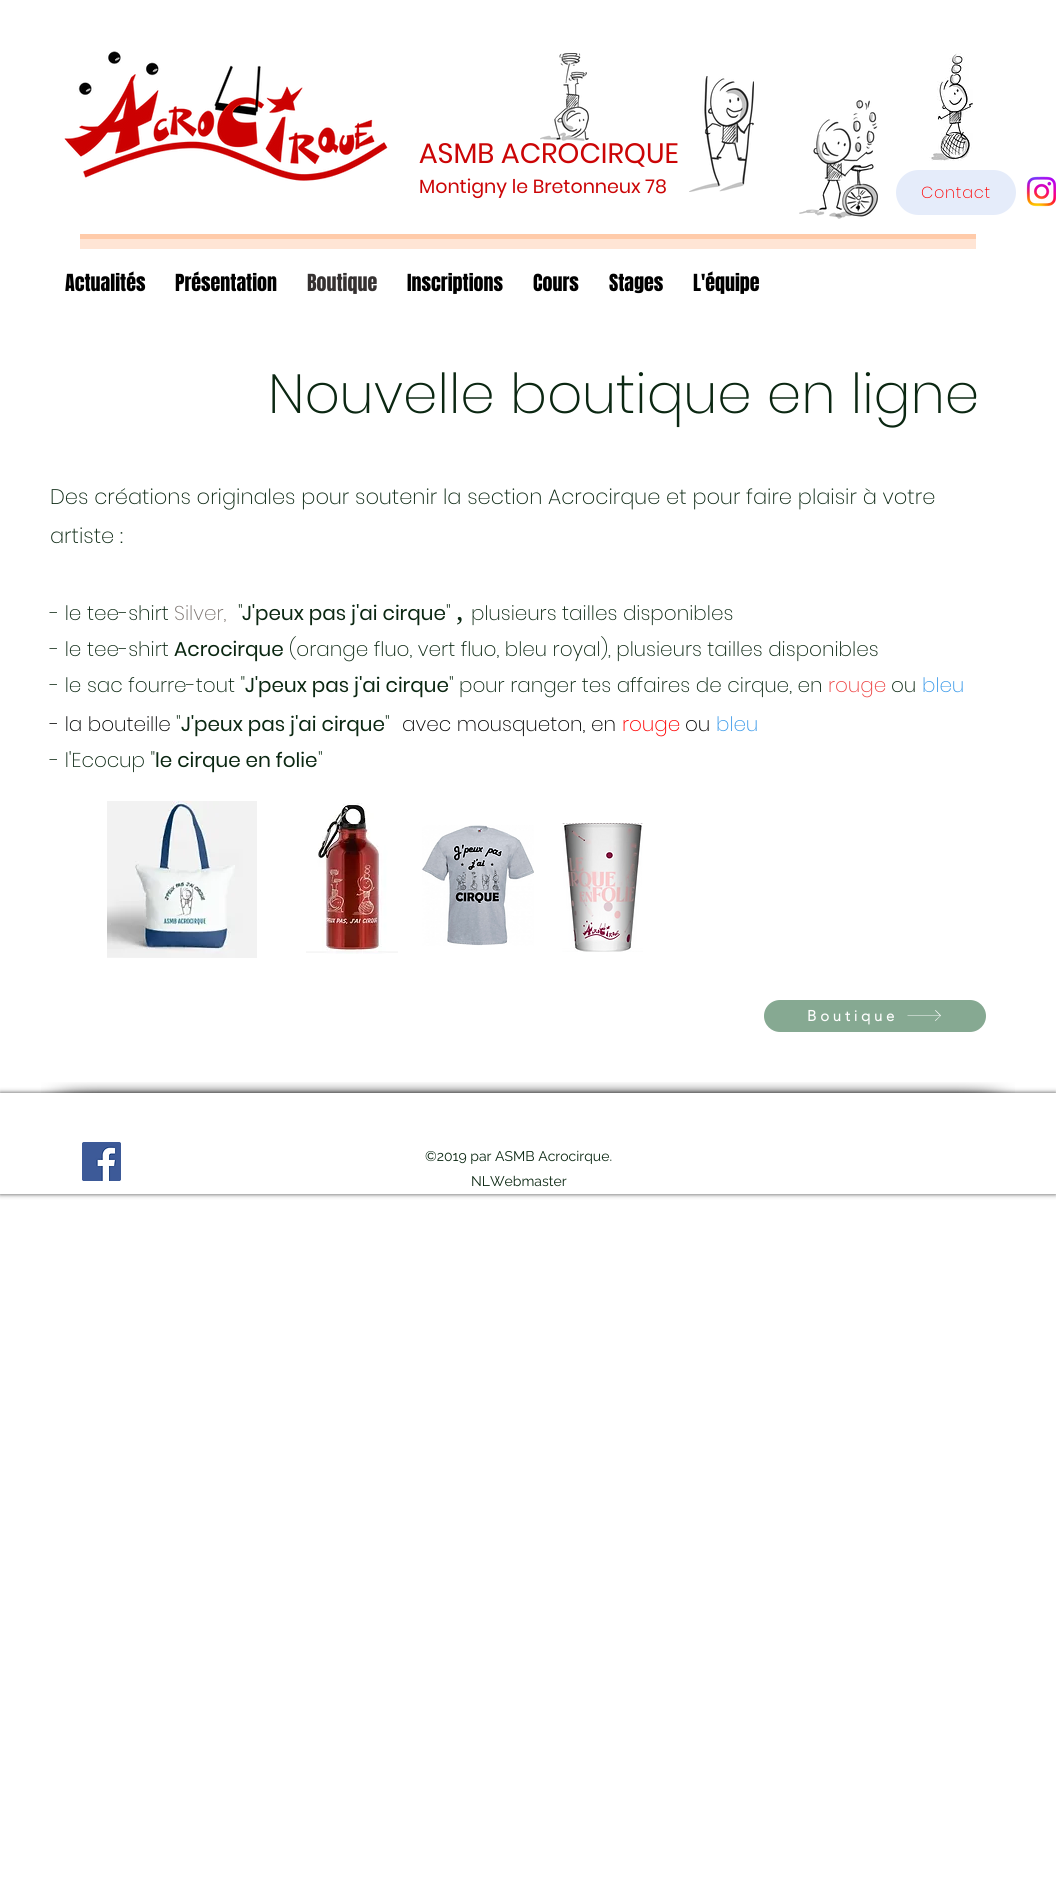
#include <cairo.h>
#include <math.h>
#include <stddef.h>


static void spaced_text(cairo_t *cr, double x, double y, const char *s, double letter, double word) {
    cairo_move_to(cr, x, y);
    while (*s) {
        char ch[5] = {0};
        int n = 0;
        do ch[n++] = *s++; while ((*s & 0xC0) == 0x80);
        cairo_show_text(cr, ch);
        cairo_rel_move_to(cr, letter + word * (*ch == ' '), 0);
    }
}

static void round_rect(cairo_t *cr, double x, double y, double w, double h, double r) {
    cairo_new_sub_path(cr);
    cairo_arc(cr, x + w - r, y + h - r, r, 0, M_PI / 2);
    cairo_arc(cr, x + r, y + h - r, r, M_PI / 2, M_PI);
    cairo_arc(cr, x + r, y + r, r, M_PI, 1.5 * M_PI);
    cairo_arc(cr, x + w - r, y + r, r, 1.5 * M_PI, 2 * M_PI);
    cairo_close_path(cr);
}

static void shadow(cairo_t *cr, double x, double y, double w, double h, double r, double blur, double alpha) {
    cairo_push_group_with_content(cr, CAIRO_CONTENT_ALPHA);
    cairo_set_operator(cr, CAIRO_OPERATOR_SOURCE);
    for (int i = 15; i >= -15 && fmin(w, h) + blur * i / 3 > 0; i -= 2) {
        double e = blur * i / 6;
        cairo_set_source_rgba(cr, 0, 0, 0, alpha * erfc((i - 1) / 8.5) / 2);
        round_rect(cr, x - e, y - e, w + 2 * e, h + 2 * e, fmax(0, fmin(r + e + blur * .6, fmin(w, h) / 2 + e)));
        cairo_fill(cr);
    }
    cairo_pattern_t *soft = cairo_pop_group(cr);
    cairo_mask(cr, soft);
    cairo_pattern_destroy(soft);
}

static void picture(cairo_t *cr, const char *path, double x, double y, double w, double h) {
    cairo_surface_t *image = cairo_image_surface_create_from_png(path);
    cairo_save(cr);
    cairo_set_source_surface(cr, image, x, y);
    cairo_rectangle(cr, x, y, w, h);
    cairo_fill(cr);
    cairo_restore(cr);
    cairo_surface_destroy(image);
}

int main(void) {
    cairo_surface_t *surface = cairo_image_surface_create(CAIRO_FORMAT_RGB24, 1056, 1877);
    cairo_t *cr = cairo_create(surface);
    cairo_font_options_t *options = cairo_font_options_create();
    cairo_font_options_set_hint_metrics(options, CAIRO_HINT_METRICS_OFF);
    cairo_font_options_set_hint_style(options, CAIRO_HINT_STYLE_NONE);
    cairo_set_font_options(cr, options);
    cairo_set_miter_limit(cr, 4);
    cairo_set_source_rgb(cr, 1, 1, 1);
    cairo_paint(cr);
    picture(cr, "img1.png", 64, 51, 324, 130);
    picture(cr, "img2.png", 540, 53, 49, 88);
    picture(cr, "img3.png", 689, 76, 65, 116);
    picture(cr, "img4.png", 799, 100, 79, 119);
    picture(cr, "img5.png", 929, 53, 44, 108);
    cairo_select_font_face(cr, "Poppins", CAIRO_FONT_SLANT_NORMAL, CAIRO_FONT_WEIGHT_NORMAL);
    cairo_set_font_size(cr, 28);
    cairo_set_source_rgb(cr, 0.796, 0.02, 0.024);
    cairo_move_to(cr, 419, 163);
    cairo_show_text(cr, "ASMB ACROCIRQUE");
    cairo_set_font_size(cr, 19);
    cairo_move_to(cr, 419, 193);
    cairo_show_text(cr, "Montigny le Bretonneux 78");
    cairo_set_source_rgb(cr, 0.898, 0.922, 0.98);
    round_rect(cr, 896, 170, 120, 45, 22.5);
    cairo_fill(cr);
    cairo_select_font_face(cr, "Poppins ExtraLight", CAIRO_FONT_SLANT_NORMAL, CAIRO_FONT_WEIGHT_NORMAL);
    cairo_set_font_size(cr, 16);
    cairo_set_source_rgb(cr, 1, 0, 0);
    spaced_text(cr, 921, 198, "Contact", 0.75, 0);
    picture(cr, "img6.png", 1026, 176, 30, 31);
    cairo_set_source_rgb(cr, 1, 0.796, 0.667);
    cairo_rectangle(cr, 80, 234, 896, 5);
    cairo_fill(cr);
    cairo_set_source_rgb(cr, 1, 0.898, 0.835);
    cairo_rectangle(cr, 80, 239, 896, 10);
    cairo_fill(cr);
    cairo_select_font_face(cr, "Anton", CAIRO_FONT_SLANT_NORMAL, CAIRO_FONT_WEIGHT_NORMAL);
    cairo_set_font_size(cr, 20);
    cairo_set_source_rgb(cr, 0, 0, 0);
    cairo_move_to(cr, 65, 291);
    cairo_show_text(cr, "Actualités");
    cairo_move_to(cr, 175, 291);
    cairo_show_text(cr, "Présentation");
    cairo_set_source_rgb(cr, 0.208, 0.192, 0.192);
    cairo_move_to(cr, 307, 291);
    cairo_show_text(cr, "Boutique");
    cairo_set_source_rgb(cr, 0, 0, 0);
    cairo_move_to(cr, 407, 291);
    cairo_show_text(cr, "Inscriptions");
    cairo_move_to(cr, 533, 291);
    cairo_show_text(cr, "Cours");
    cairo_move_to(cr, 609, 291);
    cairo_show_text(cr, "Stages");
    cairo_move_to(cr, 693, 291);
    cairo_show_text(cr, "L'équipe");
    cairo_select_font_face(cr, "Poppins ExtraLight", CAIRO_FONT_SLANT_NORMAL, CAIRO_FONT_WEIGHT_NORMAL);
    cairo_set_font_size(cr, 55);
    cairo_set_source_rgb(cr, 0.043, 0.153, 0.071);
    cairo_move_to(cr, 268, 413);
    cairo_show_text(cr, "Nouvelle boutique en ligne");
    cairo_set_font_size(cr, 21);
    cairo_move_to(cr, 50, 504);
    cairo_show_text(cr, "Des créations originales pour soutenir la section Acrocirque et pour faire plaisir à votre");
    cairo_move_to(cr, 50, 543);
    cairo_show_text(cr, "artiste :");
    cairo_set_font_size(cr, 20);
    cairo_move_to(cr, 50, 620);
    cairo_show_text(cr, "- le tee-shirt");
    cairo_set_source_rgb(cr, 0.482, 0.451, 0.435);
    cairo_move_to(cr, 174, 620);
    cairo_show_text(cr, "Silver,");
    cairo_set_source_rgb(cr, 0.043, 0.153, 0.071);
    cairo_move_to(cr, 238, 620);
    cairo_show_text(cr, "\"");
    cairo_select_font_face(cr, "Poppins", CAIRO_FONT_SLANT_NORMAL, CAIRO_FONT_WEIGHT_NORMAL);
    cairo_move_to(cr, 242, 620);
    cairo_show_text(cr, "J'peux pas j'ai cirque");
    cairo_select_font_face(cr, "Poppins ExtraLight", CAIRO_FONT_SLANT_NORMAL, CAIRO_FONT_WEIGHT_NORMAL);
    cairo_move_to(cr, 446, 620);
    cairo_show_text(cr, "\"");
    cairo_select_font_face(cr, "Liberation Serif", CAIRO_FONT_SLANT_NORMAL, CAIRO_FONT_WEIGHT_NORMAL);
    cairo_set_font_size(cr, 30);
    cairo_move_to(cr, 456, 620);
    cairo_show_text(cr, ",");
    cairo_select_font_face(cr, "Poppins ExtraLight", CAIRO_FONT_SLANT_NORMAL, CAIRO_FONT_WEIGHT_NORMAL);
    cairo_set_font_size(cr, 20);
    cairo_move_to(cr, 471, 620);
    cairo_show_text(cr, "plusieurs tailles disponibles");
    cairo_move_to(cr, 50, 656);
    cairo_show_text(cr, "- le tee-shirt");
    cairo_select_font_face(cr, "Poppins", CAIRO_FONT_SLANT_NORMAL, CAIRO_FONT_WEIGHT_NORMAL);
    cairo_move_to(cr, 174, 656);
    cairo_show_text(cr, "Acrocirque");
    cairo_select_font_face(cr, "Poppins ExtraLight", CAIRO_FONT_SLANT_NORMAL, CAIRO_FONT_WEIGHT_NORMAL);
    cairo_move_to(cr, 289, 656);
    cairo_show_text(cr, "(orange fluo, vert fluo, bleu royal), plusieurs tailles disponibles");
    cairo_move_to(cr, 50, 692);
    cairo_show_text(cr, "- le sac fourre-tout \"");
    cairo_select_font_face(cr, "Poppins", CAIRO_FONT_SLANT_NORMAL, CAIRO_FONT_WEIGHT_NORMAL);
    cairo_move_to(cr, 245, 692);
    cairo_show_text(cr, "J'peux pas j'ai cirque");
    cairo_select_font_face(cr, "Poppins ExtraLight", CAIRO_FONT_SLANT_NORMAL, CAIRO_FONT_WEIGHT_NORMAL);
    cairo_move_to(cr, 449, 692);
    cairo_show_text(cr, "\"");
    cairo_move_to(cr, 459, 692);
    cairo_show_text(cr, "pour ranger tes affaires de cirque, en");
    cairo_set_source_rgb(cr, 0.929, 0.271, 0.271);
    cairo_move_to(cr, 828, 692);
    cairo_show_text(cr, "rouge");
    cairo_set_source_rgb(cr, 0.043, 0.153, 0.071);
    cairo_move_to(cr, 891, 692);
    cairo_show_text(cr, "ou");
    cairo_set_source_rgb(cr, 0.239, 0.608, 0.914);
    cairo_move_to(cr, 922, 692);
    cairo_show_text(cr, "bleu");
    cairo_set_source_rgb(cr, 0, 0, 0);
    cairo_move_to(cr, 50, 731);
    cairo_show_text(cr, "- la bouteille");
    cairo_set_source_rgb(cr, 0.043, 0.153, 0.071);
    cairo_move_to(cr, 176, 731);
    cairo_show_text(cr, "\"");
    cairo_select_font_face(cr, "Poppins", CAIRO_FONT_SLANT_NORMAL, CAIRO_FONT_WEIGHT_NORMAL);
    cairo_move_to(cr, 181, 731);
    cairo_show_text(cr, "J'peux pas j'ai cirque");
    cairo_select_font_face(cr, "Poppins ExtraLight", CAIRO_FONT_SLANT_NORMAL, CAIRO_FONT_WEIGHT_NORMAL);
    cairo_move_to(cr, 385, 731);
    cairo_show_text(cr, "\"");
    cairo_set_source_rgb(cr, 0, 0, 0);
    cairo_move_to(cr, 402, 731);
    cairo_show_text(cr, "avec mousqueton, en");
    cairo_set_source_rgb(cr, 1, 0, 0);
    cairo_move_to(cr, 622, 731);
    cairo_show_text(cr, "rouge");
    cairo_set_source_rgb(cr, 0, 0, 0);
    cairo_move_to(cr, 685, 731);
    cairo_show_text(cr, "ou");
    cairo_set_source_rgb(cr, 0.239, 0.608, 0.914);
    cairo_move_to(cr, 716, 731);
    cairo_show_text(cr, "bleu");
    cairo_set_source_rgb(cr, 0.043, 0.153, 0.071);
    cairo_move_to(cr, 50, 767);
    cairo_show_text(cr, "- l'Ecocup \"");
    cairo_select_font_face(cr, "Poppins", CAIRO_FONT_SLANT_NORMAL, CAIRO_FONT_WEIGHT_NORMAL);
    cairo_move_to(cr, 155, 767);
    cairo_show_text(cr, "le cirque en folie");
    cairo_select_font_face(cr, "Poppins ExtraLight", CAIRO_FONT_SLANT_NORMAL, CAIRO_FONT_WEIGHT_NORMAL);
    cairo_move_to(cr, 318, 767);
    cairo_show_text(cr, "\"");
    picture(cr, "img7.png", 107, 801, 150, 157);
    picture(cr, "img8.png", 306, 803, 92, 151);
    picture(cr, "img9.png", 422, 825, 112, 121);
    picture(cr, "img10.png", 562, 823, 81, 129);
    cairo_set_source_rgb(cr, 0.525, 0.663, 0.573);
    round_rect(cr, 764, 1000, 222, 32, 16);
    cairo_fill(cr);
    cairo_select_font_face(cr, "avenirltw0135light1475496", CAIRO_FONT_SLANT_NORMAL, CAIRO_FONT_WEIGHT_BOLD);
    cairo_set_font_size(cr, 15);
    cairo_set_source_rgb(cr, 1, 1, 1);
    spaced_text(cr, 807, 1021, "Boutique", 3.75, 0);
    cairo_new_path(cr);
    cairo_move_to(cr, 935.5, 1010);
    cairo_line_to(cr, 935, 1010.5);
    cairo_line_to(cr, 940, 1015.5);
    cairo_line_to(cr, 907.5, 1015.5);
    cairo_line_to(cr, 907.5, 1016);
    cairo_line_to(cr, 940, 1016);
    cairo_line_to(cr, 935, 1020.5);
    cairo_line_to(cr, 935.5, 1021);
    cairo_line_to(cr, 941, 1015.5);
    cairo_close_path(cr);
    cairo_fill(cr);
    cairo_save(cr);
    cairo_set_fill_rule(cr, CAIRO_FILL_RULE_EVEN_ODD);
    cairo_new_path(cr);
    cairo_move_to(cr, 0, 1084);
    cairo_line_to(cr, 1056, 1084);
    cairo_line_to(cr, 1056, 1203);
    cairo_line_to(cr, 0, 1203);
    cairo_close_path(cr);
    cairo_move_to(cr, 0, 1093);
    cairo_line_to(cr, 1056, 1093);
    cairo_line_to(cr, 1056, 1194);
    cairo_line_to(cr, 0, 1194);
    cairo_close_path(cr);
    cairo_clip(cr);
    cairo_set_source_rgb(cr, 0, 0, 0);
    shadow(cr, 0, 1093, 1056, 101, 0, 2.5, 0.7);
    cairo_restore(cr);
    picture(cr, "img11.png", 41, 1082, 97, 11);
    picture(cr, "img12.png", 138, 1082, 780, 11);
    picture(cr, "img13.png", 918, 1082, 97, 11);
    picture(cr, "img14.png", 82, 1142, 39, 39);
    cairo_select_font_face(cr, "Raleway", CAIRO_FONT_SLANT_NORMAL, CAIRO_FONT_WEIGHT_NORMAL);
    cairo_set_font_size(cr, 14);
    cairo_set_source_rgb(cr, 0.043, 0.153, 0.071);
    cairo_move_to(cr, 425, 1161);
    cairo_show_text(cr, "©2019 par ASMB Acrocirque.");
    cairo_move_to(cr, 471, 1186);
    cairo_show_text(cr, "NLWebmaster");
    cairo_surface_write_to_png(surface, "page.png");
    cairo_font_options_destroy(options);
    cairo_destroy(cr);
    cairo_surface_destroy(surface);
    return 0;
}
